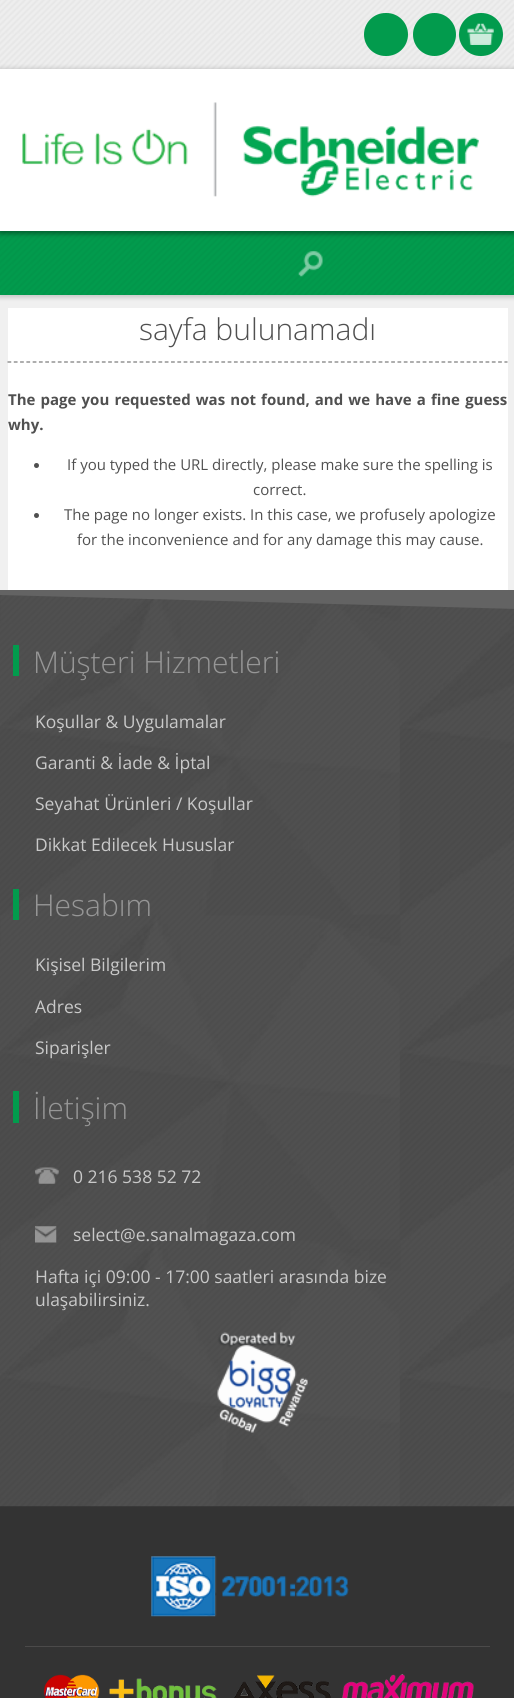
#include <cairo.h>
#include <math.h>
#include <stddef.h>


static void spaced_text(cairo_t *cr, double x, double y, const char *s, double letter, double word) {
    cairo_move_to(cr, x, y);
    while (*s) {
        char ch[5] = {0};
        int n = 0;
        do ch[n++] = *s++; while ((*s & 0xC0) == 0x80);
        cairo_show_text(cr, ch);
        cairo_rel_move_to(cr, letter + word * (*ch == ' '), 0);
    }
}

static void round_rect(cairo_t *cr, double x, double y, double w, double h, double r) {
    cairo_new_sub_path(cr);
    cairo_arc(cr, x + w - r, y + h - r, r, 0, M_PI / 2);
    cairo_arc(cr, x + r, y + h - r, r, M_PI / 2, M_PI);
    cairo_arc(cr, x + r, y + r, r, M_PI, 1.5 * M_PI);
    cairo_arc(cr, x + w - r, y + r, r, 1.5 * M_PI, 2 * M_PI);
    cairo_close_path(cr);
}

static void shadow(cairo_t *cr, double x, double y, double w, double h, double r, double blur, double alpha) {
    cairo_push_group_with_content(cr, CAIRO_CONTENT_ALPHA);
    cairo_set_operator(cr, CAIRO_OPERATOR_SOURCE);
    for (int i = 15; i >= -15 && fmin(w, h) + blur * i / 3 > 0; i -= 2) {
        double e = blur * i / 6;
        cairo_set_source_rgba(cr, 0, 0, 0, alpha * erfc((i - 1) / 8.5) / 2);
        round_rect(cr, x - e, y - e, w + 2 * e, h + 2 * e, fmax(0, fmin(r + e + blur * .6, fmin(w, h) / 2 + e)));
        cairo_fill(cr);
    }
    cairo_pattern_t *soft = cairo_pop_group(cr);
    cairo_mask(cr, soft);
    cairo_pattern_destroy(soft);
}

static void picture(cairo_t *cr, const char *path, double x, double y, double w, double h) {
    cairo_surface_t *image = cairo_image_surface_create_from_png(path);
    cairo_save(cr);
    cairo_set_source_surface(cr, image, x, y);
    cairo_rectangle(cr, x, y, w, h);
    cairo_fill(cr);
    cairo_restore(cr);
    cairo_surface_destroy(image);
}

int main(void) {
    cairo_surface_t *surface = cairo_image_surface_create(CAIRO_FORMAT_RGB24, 514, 1698);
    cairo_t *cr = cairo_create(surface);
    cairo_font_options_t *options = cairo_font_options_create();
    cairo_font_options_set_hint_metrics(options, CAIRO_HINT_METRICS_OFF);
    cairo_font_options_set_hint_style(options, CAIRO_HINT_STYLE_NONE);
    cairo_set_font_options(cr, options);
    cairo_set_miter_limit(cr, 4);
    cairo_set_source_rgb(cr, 0.941, 0.941, 0.941);
    cairo_paint(cr);
    cairo_set_source_rgb(cr, 0, 0, 0);
    shadow(cr, -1, 231, 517, 67, 0, 2, 0.15);
    cairo_set_source_rgb(cr, 0.008, 0.608, 0.302);
    cairo_rectangle(cr, 0, 231, 514, 64);
    cairo_fill(cr);
    picture(cr, "img4.png", 0, 232, 514, 63);
    cairo_set_source_rgb(cr, 0, 0, 0);
    shadow(cr, -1, 0, 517, 234, 0, 2, 0.15);
    cairo_set_source_rgb(cr, 0.933, 0.933, 0.933);
    cairo_rectangle(cr, 0, 0, 514, 69);
    cairo_fill(cr);
    picture(cr, "img1.png", 0, 0, 514, 69);
    cairo_set_source_rgb(cr, 0.008, 0.608, 0.302);
    round_rect(cr, 364, 13, 44, 43, 21.5);
    cairo_fill(cr);
    cairo_arc(cr, 434.5, 34.5, 21.5, 0, 2 * M_PI);
    cairo_fill(cr);
    round_rect(cr, 459, 13, 44, 43, 21.5);
    cairo_fill(cr);
    picture(cr, "img2.png", 467, 23, 27, 22);
    cairo_set_source_rgb(cr, 0, 0, 0);
    shadow(cr, 0, 70, 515, 163, 0, 3, 0.3);
    cairo_set_source_rgb(cr, 1, 1, 1);
    cairo_rectangle(cr, 0, 69, 514, 162);
    cairo_fill(cr);
    picture(cr, "img3.png", 22, 102, 457, 95);
    picture(cr, "img5.png", 298, 251, 25, 26);
    cairo_rectangle(cr, 8, 308, 500, 282);
    cairo_fill(cr);
    cairo_new_path(cr);
    cairo_move_to(cr, 7.5, 362);
    cairo_line_to(cr, 507.5, 362);
    cairo_set_source_rgb(cr, 0.475, 0.475, 0.475);
    cairo_set_line_width(cr, 1.2);
    cairo_set_dash(cr, (double[]){3.75, 2.54}, 2, 0);
    cairo_stroke(cr);
    cairo_select_font_face(cr, "Open Sans Light", CAIRO_FONT_SLANT_NORMAL, CAIRO_FONT_WEIGHT_NORMAL);
    cairo_set_font_size(cr, 30);
    cairo_set_source_rgb(cr, 0.314, 0.314, 0.314);
    cairo_move_to(cr, 139, 340);
    cairo_show_text(cr, "sayfa bulunamadı");
    cairo_select_font_face(cr, "Open Sans", CAIRO_FONT_SLANT_NORMAL, CAIRO_FONT_WEIGHT_BOLD);
    cairo_set_font_size(cr, 15);
    spaced_text(cr, 8, 405, "The page you requested was not found, and we have a fine guess", 0, 1.25);
    cairo_move_to(cr, 8, 430);
    cairo_show_text(cr, "why.");
    cairo_new_path(cr);
    cairo_arc(cr, 36.5, 465.5, 2.5, 0, 2 * M_PI);
    cairo_fill(cr);
    cairo_select_font_face(cr, "Open Sans", CAIRO_FONT_SLANT_NORMAL, CAIRO_FONT_WEIGHT_NORMAL);
    cairo_move_to(cr, 67, 470);
    cairo_show_text(cr, "If you typed the URL directly, please make sure the spelling is");
    cairo_move_to(cr, 253, 495);
    cairo_show_text(cr, "correct.");
    cairo_new_path(cr);
    cairo_arc(cr, 36.5, 515.5, 2.5, 0, 2 * M_PI);
    cairo_fill(cr);
    cairo_move_to(cr, 64, 520);
    cairo_show_text(cr, "The page no longer exists. In this case, we profusely apologize");
    cairo_move_to(cr, 77, 545);
    cairo_show_text(cr, "for the inconvenience and for any damage this may cause.");
    cairo_set_source_rgb(cr, 0.2, 0.2, 0.2);
    cairo_rectangle(cr, 0, 1506, 514, 192);
    cairo_fill(cr);
    picture(cr, "img6.png", 0, 595, 514, 912);
    cairo_save(cr);
    cairo_rectangle(cr, 0, 590, 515, 916);
    cairo_clip(cr);
    cairo_set_source_rgb(cr, 0.388, 0.388, 0.388);
    cairo_new_path(cr);
    cairo_move_to(cr, 1, 533);
    cairo_line_to(cr, 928, 557);
    cairo_line_to(cr, 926, 620);
    cairo_line_to(cr, -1, 595);
    cairo_close_path(cr);
    cairo_fill(cr);
    cairo_restore(cr);
    cairo_set_source_rgb(cr, 0.008, 0.608, 0.302);
    cairo_rectangle(cr, 13, 645, 6, 31);
    cairo_fill(cr);
    cairo_select_font_face(cr, "Open Sans Light", CAIRO_FONT_SLANT_NORMAL, CAIRO_FONT_WEIGHT_NORMAL);
    cairo_set_font_size(cr, 30);
    cairo_set_source_rgb(cr, 0.588, 0.588, 0.588);
    cairo_move_to(cr, 33, 673);
    cairo_show_text(cr, "Müşteri Hizmetleri");
    cairo_select_font_face(cr, "Open Sans", CAIRO_FONT_SLANT_NORMAL, CAIRO_FONT_WEIGHT_NORMAL);
    cairo_set_font_size(cr, 17.5);
    cairo_set_source_rgb(cr, 0.788, 0.788, 0.788);
    cairo_move_to(cr, 35, 728);
    cairo_show_text(cr, "Koşullar & Uygulamalar");
    cairo_move_to(cr, 35, 769);
    cairo_show_text(cr, "Garanti & İade & İptal");
    cairo_move_to(cr, 35, 810);
    cairo_show_text(cr, "Seyahat Ürünleri / Koşullar");
    cairo_move_to(cr, 35, 851);
    cairo_show_text(cr, "Dikkat Edilecek Hususlar");
    cairo_set_source_rgb(cr, 0.008, 0.608, 0.302);
    cairo_rectangle(cr, 13, 889, 6, 31);
    cairo_fill(cr);
    cairo_select_font_face(cr, "Open Sans Light", CAIRO_FONT_SLANT_NORMAL, CAIRO_FONT_WEIGHT_NORMAL);
    cairo_set_font_size(cr, 30);
    cairo_set_source_rgb(cr, 0.588, 0.588, 0.588);
    cairo_move_to(cr, 33, 916);
    cairo_show_text(cr, "Hesabım");
    cairo_select_font_face(cr, "Open Sans", CAIRO_FONT_SLANT_NORMAL, CAIRO_FONT_WEIGHT_NORMAL);
    cairo_set_font_size(cr, 17.5);
    cairo_set_source_rgb(cr, 0.788, 0.788, 0.788);
    cairo_move_to(cr, 35, 971);
    cairo_show_text(cr, "Kişisel Bilgilerim");
    cairo_move_to(cr, 35, 1013);
    cairo_show_text(cr, "Adres");
    cairo_move_to(cr, 35, 1054);
    cairo_show_text(cr, "Siparişler");
    cairo_set_source_rgb(cr, 0.008, 0.608, 0.302);
    cairo_rectangle(cr, 13, 1091, 6, 32);
    cairo_fill(cr);
    cairo_select_font_face(cr, "Open Sans Light", CAIRO_FONT_SLANT_NORMAL, CAIRO_FONT_WEIGHT_NORMAL);
    cairo_set_font_size(cr, 30);
    cairo_set_source_rgb(cr, 0.588, 0.588, 0.588);
    cairo_move_to(cr, 33, 1119);
    cairo_show_text(cr, "İletişim");
    picture(cr, "img7.png", 35, 1167, 24, 17);
    cairo_select_font_face(cr, "Open Sans", CAIRO_FONT_SLANT_NORMAL, CAIRO_FONT_WEIGHT_NORMAL);
    cairo_set_font_size(cr, 17.5);
    cairo_set_source_rgb(cr, 0.788, 0.788, 0.788);
    cairo_move_to(cr, 73, 1183);
    cairo_show_text(cr, "0 216 538 52 72");
    picture(cr, "img8.png", 35, 1226, 22, 17);
    cairo_move_to(cr, 73, 1241);
    cairo_show_text(cr, "select@e.sanalmagaza.com");
    cairo_move_to(cr, 35, 1283);
    cairo_show_text(cr, "Hafta içi 09:00 - 17:00 saatleri arasında bize");
    cairo_move_to(cr, 35, 1306);
    cairo_show_text(cr, "ulaşabilirsiniz.");
    picture(cr, "img9.png", 217, 1332, 91, 101);
    cairo_set_source_rgb(cr, 0.294, 0.29, 0.29);
    cairo_rectangle(cr, 25, 1646, 465, 1);
    cairo_fill(cr);
    picture(cr, "img10.png", 151, 1556, 198, 61);
    picture(cr, "img11.png", 43, 1674, 57, 24);
    picture(cr, "img12.png", 109, 1678, 108, 20);
    picture(cr, "img13.png", 234, 1675, 97, 23);
    picture(cr, "img14.png", 342, 1674, 132, 24);
    cairo_surface_write_to_png(surface, "page.png");
    cairo_font_options_destroy(options);
    cairo_destroy(cr);
    cairo_surface_destroy(surface);
    return 0;
}
